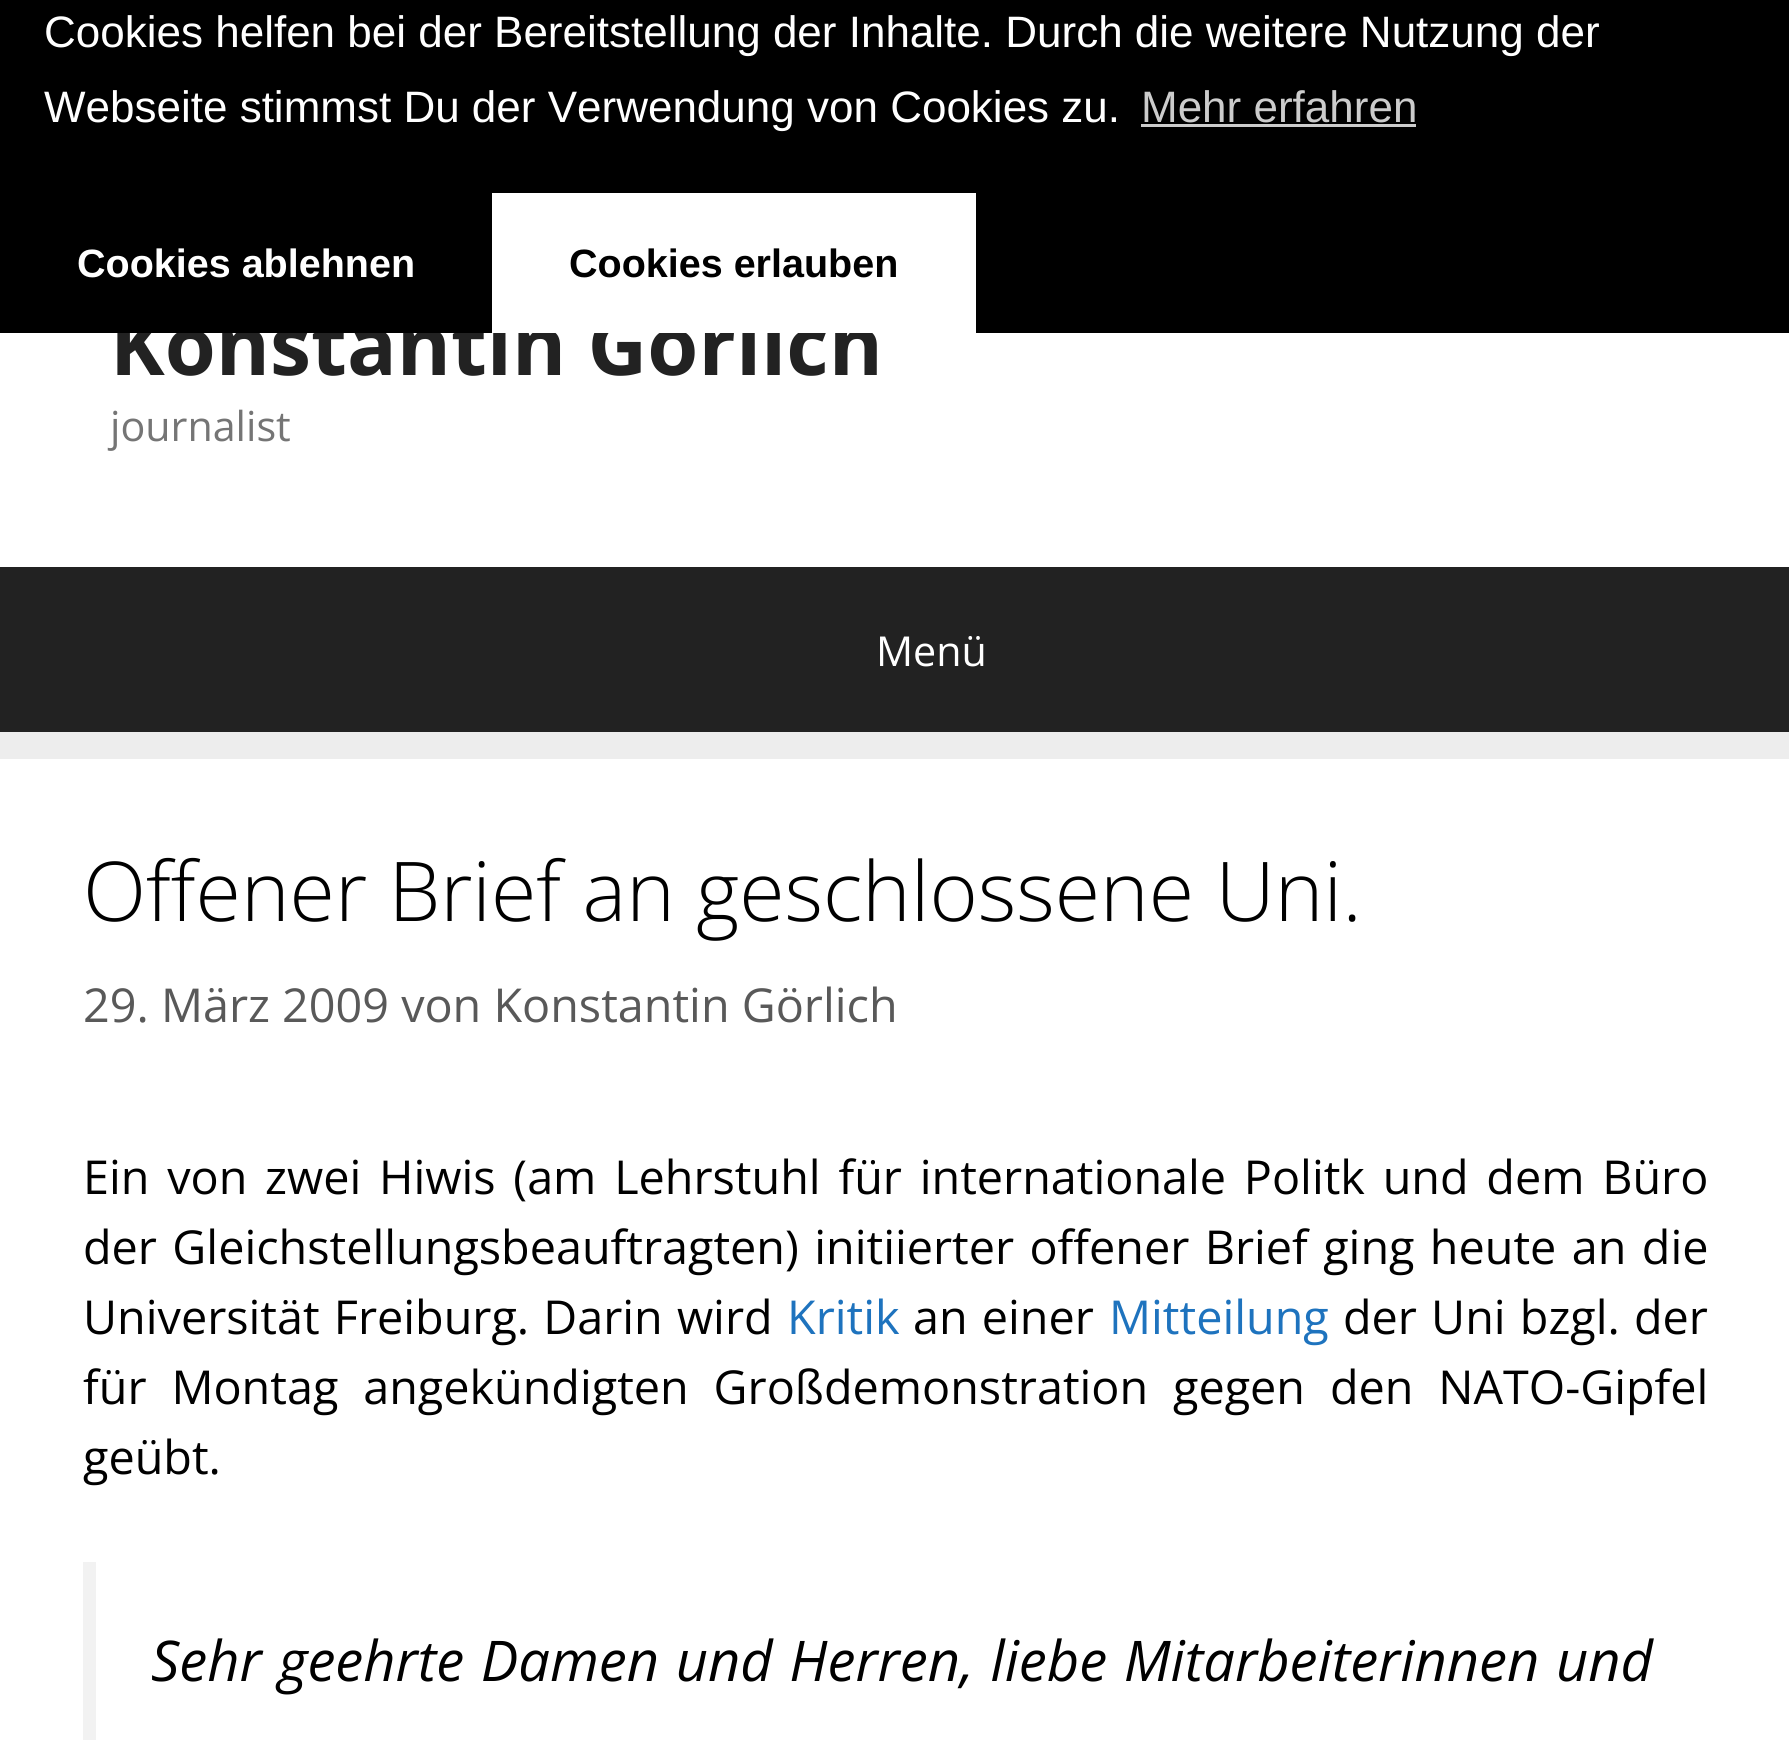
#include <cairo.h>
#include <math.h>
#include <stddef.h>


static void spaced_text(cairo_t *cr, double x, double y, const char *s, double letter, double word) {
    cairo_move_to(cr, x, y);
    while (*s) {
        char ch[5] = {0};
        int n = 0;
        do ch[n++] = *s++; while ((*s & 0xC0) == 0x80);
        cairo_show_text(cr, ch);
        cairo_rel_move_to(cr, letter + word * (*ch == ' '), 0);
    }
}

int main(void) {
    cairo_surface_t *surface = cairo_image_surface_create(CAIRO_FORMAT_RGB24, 1789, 1740);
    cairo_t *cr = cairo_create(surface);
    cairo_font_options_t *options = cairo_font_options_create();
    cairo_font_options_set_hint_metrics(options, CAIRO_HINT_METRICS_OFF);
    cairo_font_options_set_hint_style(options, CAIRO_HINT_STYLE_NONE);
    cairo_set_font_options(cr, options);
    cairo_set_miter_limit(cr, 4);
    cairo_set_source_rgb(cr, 0.929, 0.929, 0.929);
    cairo_paint(cr);
    cairo_set_source_rgb(cr, 1, 1, 1);
    cairo_rectangle(cr, 0, 333, 1789, 234);
    cairo_fill(cr);
    cairo_select_font_face(cr, "Open Sans", CAIRO_FONT_SLANT_NORMAL, CAIRO_FONT_WEIGHT_BOLD);
    cairo_set_font_size(cr, 82.5);
    cairo_set_source_rgb(cr, 0.133, 0.133, 0.133);
    cairo_move_to(cr, 110, 375);
    cairo_show_text(cr, "Konstantin Görlich");
    cairo_set_source_rgb(cr, 0, 0, 0);
    cairo_rectangle(cr, 0, 0, 1789, 333);
    cairo_fill(cr);
    cairo_select_font_face(cr, "Liberation Sans", CAIRO_FONT_SLANT_NORMAL, CAIRO_FONT_WEIGHT_NORMAL);
    cairo_set_font_size(cr, 44);
    cairo_set_source_rgb(cr, 1, 1, 1);
    cairo_move_to(cr, 44, 47);
    cairo_show_text(cr, "Cookies helfen bei der Bereitstellung der Inhalte. Durch die weitere Nutzung der");
    cairo_move_to(cr, 44, 122);
    cairo_show_text(cr, "Webseite stimmst Du der Verwendung von Cookies zu.");
    cairo_set_source_rgb(cr, 0.8, 0.8, 0.8);
    cairo_move_to(cr, 1141, 122);
    cairo_show_text(cr, "Mehr erfahren");
    cairo_rectangle(cr, 1141, 124, 275, 3);
    cairo_fill(cr);
    cairo_select_font_face(cr, "Liberation Sans", CAIRO_FONT_SLANT_NORMAL, CAIRO_FONT_WEIGHT_BOLD);
    cairo_set_font_size(cr, 39.5);
    cairo_set_source_rgb(cr, 1, 1, 1);
    cairo_move_to(cr, 77, 277);
    cairo_show_text(cr, "Cookies ablehnen");
    cairo_rectangle(cr, 492, 193, 484, 140);
    cairo_fill(cr);
    cairo_set_source_rgb(cr, 0, 0, 0);
    cairo_move_to(cr, 569, 277);
    cairo_show_text(cr, "Cookies erlauben");
    cairo_select_font_face(cr, "Open Sans", CAIRO_FONT_SLANT_NORMAL, CAIRO_FONT_WEIGHT_NORMAL);
    cairo_set_font_size(cr, 41.25);
    cairo_set_source_rgb(cr, 0.459, 0.459, 0.459);
    cairo_move_to(cr, 110, 441);
    cairo_show_text(cr, "journalist");
    cairo_set_source_rgb(cr, 0.133, 0.133, 0.133);
    cairo_rectangle(cr, 0, 567, 1789, 165);
    cairo_fill(cr);
    cairo_set_source_rgb(cr, 1, 1, 1);
    cairo_move_to(cr, 876, 666);
    cairo_show_text(cr, "Menü");
    cairo_rectangle(cr, 0, 759, 1789, 981);
    cairo_fill(cr);
    cairo_select_font_face(cr, "Open Sans Light", CAIRO_FONT_SLANT_NORMAL, CAIRO_FONT_WEIGHT_NORMAL);
    cairo_set_font_size(cr, 82.5);
    cairo_set_source_rgb(cr, 0, 0, 0);
    cairo_move_to(cr, 83, 921);
    cairo_show_text(cr, "Offener Brief an geschlossene Uni.");
    cairo_select_font_face(cr, "Open Sans", CAIRO_FONT_SLANT_NORMAL, CAIRO_FONT_WEIGHT_NORMAL);
    cairo_set_font_size(cr, 46.75);
    cairo_set_source_rgb(cr, 0.349, 0.349, 0.349);
    cairo_move_to(cr, 83, 1022);
    cairo_show_text(cr, "29. März 2009 von Konstantin Görlich");
    cairo_set_source_rgb(cr, 0, 0, 0);
    spaced_text(cr, 83, 1194, "Ein von zwei Hiwis (am Lehrstuhl für internationale Politk und dem Büro", 0, 5.6);
    spaced_text(cr, 83, 1264, "der Gleichstellungsbeauftragten) initiierter offener Brief ging heute an die", 0, 3.25);
    spaced_text(cr, 83, 1334, "Universität Freiburg. Darin wird", 0, 2);
    cairo_set_source_rgb(cr, 0.118, 0.451, 0.745);
    cairo_move_to(cr, 787, 1334);
    cairo_show_text(cr, "Kritik");
    cairo_set_source_rgb(cr, 0, 0, 0);
    spaced_text(cr, 913, 1334, "an einer", 0, 2);
    cairo_set_source_rgb(cr, 0.118, 0.451, 0.745);
    cairo_move_to(cr, 1109, 1334);
    cairo_show_text(cr, "Mitteilung");
    cairo_set_source_rgb(cr, 0, 0, 0);
    spaced_text(cr, 1343, 1334, "der Uni bzgl. der", 0, 2);
    spaced_text(cr, 83, 1404, "für Montag angekündigten Großdemonstration gegen den NATO-Gipfel", 0, 12.75);
    cairo_move_to(cr, 83, 1474);
    cairo_show_text(cr, "geübt.");
    cairo_set_source_rgb(cr, 0.949, 0.949, 0.949);
    cairo_rectangle(cr, 83, 1562, 13, 178);
    cairo_fill(cr);
    cairo_select_font_face(cr, "Open Sans", CAIRO_FONT_SLANT_ITALIC, CAIRO_FONT_WEIGHT_NORMAL);
    cairo_set_font_size(cr, 56.1);
    cairo_set_source_rgb(cr, 0, 0, 0);
    spaced_text(cr, 151, 1681, "Sehr geehrte Damen und Herren, liebe Mitarbeiterinnen und", 0, 2);
    cairo_surface_write_to_png(surface, "page.png");
    cairo_font_options_destroy(options);
    cairo_destroy(cr);
    cairo_surface_destroy(surface);
    return 0;
}
